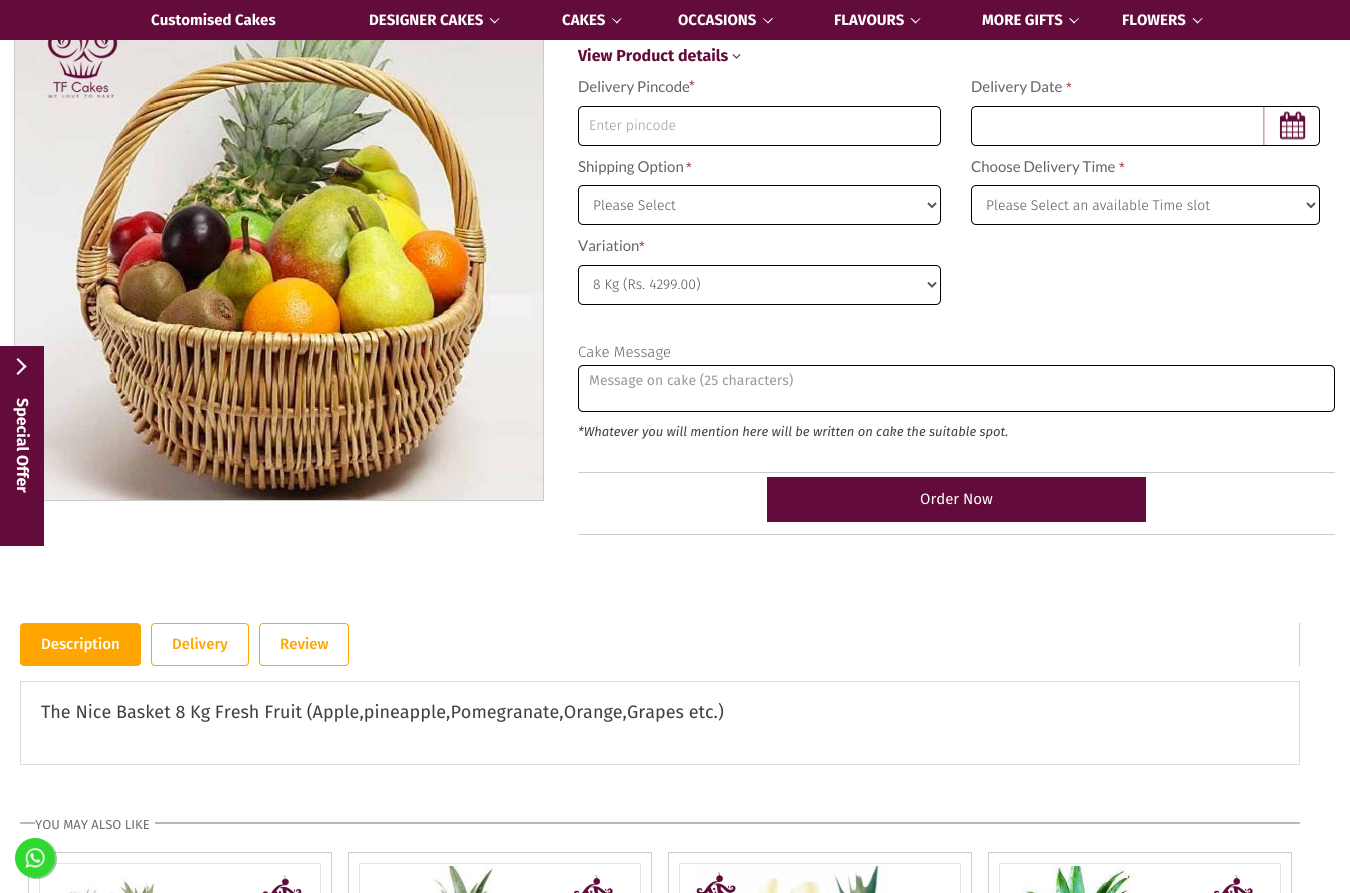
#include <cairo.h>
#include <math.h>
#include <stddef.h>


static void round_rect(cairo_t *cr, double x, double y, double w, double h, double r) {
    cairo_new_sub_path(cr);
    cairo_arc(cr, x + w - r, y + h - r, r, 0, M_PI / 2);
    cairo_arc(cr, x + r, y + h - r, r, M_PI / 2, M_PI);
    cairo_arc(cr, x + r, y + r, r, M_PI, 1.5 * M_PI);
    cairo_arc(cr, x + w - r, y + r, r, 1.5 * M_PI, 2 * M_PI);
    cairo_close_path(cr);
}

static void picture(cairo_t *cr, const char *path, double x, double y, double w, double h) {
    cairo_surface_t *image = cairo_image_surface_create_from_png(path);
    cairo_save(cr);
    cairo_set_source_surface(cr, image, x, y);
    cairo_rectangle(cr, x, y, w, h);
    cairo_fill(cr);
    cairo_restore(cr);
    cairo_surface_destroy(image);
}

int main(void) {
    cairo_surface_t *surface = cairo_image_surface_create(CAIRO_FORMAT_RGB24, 1350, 893);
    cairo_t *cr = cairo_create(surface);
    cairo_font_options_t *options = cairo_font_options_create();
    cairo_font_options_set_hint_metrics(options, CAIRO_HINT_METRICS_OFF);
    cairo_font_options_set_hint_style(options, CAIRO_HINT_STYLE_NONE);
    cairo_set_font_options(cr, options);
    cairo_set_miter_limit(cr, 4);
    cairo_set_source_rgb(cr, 1, 1, 1);
    cairo_paint(cr);
    cairo_rectangle(cr, 14.5, -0.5, 529, 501);
    cairo_set_source_rgb(cr, 0.8, 0.8, 0.8);
    cairo_set_line_width(cr, 1);
    cairo_stroke(cr);
    cairo_set_source_rgb(cr, 0.388, 0.043, 0.227);
    cairo_rectangle(cr, 0, 0, 1350, 40);
    cairo_fill(cr);
    cairo_select_font_face(cr, "Fira Sans", CAIRO_FONT_SLANT_NORMAL, CAIRO_FONT_WEIGHT_BOLD);
    cairo_set_font_size(cr, 15);
    cairo_set_source_rgb(cr, 1, 1, 1);
    cairo_move_to(cr, 151, 25);
    cairo_show_text(cr, "Customised Cakes");
    cairo_move_to(cr, 369, 25);
    cairo_show_text(cr, "DESIGNER CAKES");
    cairo_new_path(cr);
    cairo_move_to(cr, 494.5, 23.5);
    cairo_line_to(cr, 489.5, 18.5);
    cairo_line_to(cr, 490.5, 18);
    cairo_line_to(cr, 495.5, 22.5);
    cairo_close_path(cr);
    cairo_fill(cr);
    cairo_new_path(cr);
    cairo_move_to(cr, 494.5, 23.5);
    cairo_line_to(cr, 494, 22.5);
    cairo_line_to(cr, 499, 18);
    cairo_line_to(cr, 499.5, 18.5);
    cairo_close_path(cr);
    cairo_fill(cr);
    cairo_move_to(cr, 562, 25);
    cairo_show_text(cr, "CAKES");
    cairo_new_path(cr);
    cairo_move_to(cr, 617, 23.5);
    cairo_line_to(cr, 612, 18.5);
    cairo_line_to(cr, 612.5, 18);
    cairo_line_to(cr, 617.5, 22.5);
    cairo_close_path(cr);
    cairo_fill(cr);
    cairo_new_path(cr);
    cairo_move_to(cr, 617, 23.5);
    cairo_line_to(cr, 616, 22.5);
    cairo_line_to(cr, 621, 18);
    cairo_line_to(cr, 621.5, 18.5);
    cairo_close_path(cr);
    cairo_fill(cr);
    cairo_move_to(cr, 678, 25);
    cairo_show_text(cr, "OCCASIONS");
    cairo_new_path(cr);
    cairo_move_to(cr, 768, 23.5);
    cairo_line_to(cr, 763, 18.5);
    cairo_line_to(cr, 763.5, 18);
    cairo_line_to(cr, 768.5, 22.5);
    cairo_close_path(cr);
    cairo_fill(cr);
    cairo_new_path(cr);
    cairo_move_to(cr, 768, 23.5);
    cairo_line_to(cr, 767.5, 22.5);
    cairo_line_to(cr, 772, 18);
    cairo_line_to(cr, 773, 18.5);
    cairo_close_path(cr);
    cairo_fill(cr);
    cairo_move_to(cr, 834, 25);
    cairo_show_text(cr, "FLAVOURS");
    cairo_new_path(cr);
    cairo_move_to(cr, 915.5, 23.5);
    cairo_line_to(cr, 910.5, 18.5);
    cairo_line_to(cr, 911.5, 18);
    cairo_line_to(cr, 916.5, 22.5);
    cairo_close_path(cr);
    cairo_fill(cr);
    cairo_new_path(cr);
    cairo_move_to(cr, 915.5, 23.5);
    cairo_line_to(cr, 915, 22.5);
    cairo_line_to(cr, 920, 18);
    cairo_line_to(cr, 920.5, 18.5);
    cairo_close_path(cr);
    cairo_fill(cr);
    cairo_move_to(cr, 982, 25);
    cairo_show_text(cr, "MORE GIFTS");
    cairo_new_path(cr);
    cairo_move_to(cr, 1074, 23.5);
    cairo_line_to(cr, 1069, 18.5);
    cairo_line_to(cr, 1070, 18);
    cairo_line_to(cr, 1075, 22.5);
    cairo_close_path(cr);
    cairo_fill(cr);
    cairo_new_path(cr);
    cairo_move_to(cr, 1074, 23.5);
    cairo_line_to(cr, 1073.5, 22.5);
    cairo_line_to(cr, 1078.5, 18);
    cairo_line_to(cr, 1079, 18.5);
    cairo_close_path(cr);
    cairo_fill(cr);
    cairo_move_to(cr, 1122, 25);
    cairo_show_text(cr, "FLOWERS");
    cairo_new_path(cr);
    cairo_move_to(cr, 1197.5, 23.5);
    cairo_line_to(cr, 1192.5, 18.5);
    cairo_line_to(cr, 1193.5, 18);
    cairo_line_to(cr, 1198.5, 22.5);
    cairo_close_path(cr);
    cairo_fill(cr);
    cairo_new_path(cr);
    cairo_move_to(cr, 1197.5, 23.5);
    cairo_line_to(cr, 1197, 22.5);
    cairo_line_to(cr, 1202, 18);
    cairo_line_to(cr, 1202.5, 18.5);
    cairo_close_path(cr);
    cairo_fill(cr);
    picture(cr, "img1.png", 15, 40, 528, 460);
    cairo_set_source_rgb(cr, 0.388, 0.043, 0.227);
    cairo_rectangle(cr, 0, 346, 44, 200);
    cairo_fill(cr);
    cairo_set_source_rgb(cr, 1, 1, 1);
    cairo_new_path(cr);
    cairo_move_to(cr, 18, 358);
    cairo_line_to(cr, 26.5, 366.5);
    cairo_line_to(cr, 25, 368);
    cairo_line_to(cr, 16.5, 359.5);
    cairo_close_path(cr);
    cairo_fill(cr);
    cairo_new_path(cr);
    cairo_move_to(cr, 25, 365);
    cairo_line_to(cr, 26.5, 366.5);
    cairo_line_to(cr, 18, 375);
    cairo_line_to(cr, 16.5, 373.5);
    cairo_close_path(cr);
    cairo_fill(cr);
    cairo_set_font_size(cr, 16);
    cairo_save(cr);
    cairo_translate(cr, 17, 398);
    cairo_rotate(cr, 90 * M_PI / 180);
    cairo_move_to(cr, 0, 0);
    cairo_show_text(cr, "Special Offer");
    cairo_restore(cr);
    cairo_set_source_rgb(cr, 0.388, 0.043, 0.227);
    cairo_move_to(cr, 578, 61);
    cairo_show_text(cr, "View Product details");
    picture(cr, "img2.png", 732, 54, 9, 5);
    cairo_select_font_face(cr, "Lato", CAIRO_FONT_SLANT_NORMAL, CAIRO_FONT_WEIGHT_NORMAL);
    cairo_set_font_size(cr, 15);
    cairo_set_source_rgb(cr, 0.392, 0.392, 0.392);
    cairo_move_to(cr, 578, 92);
    cairo_show_text(cr, "Delivery Pincode");
    cairo_select_font_face(cr, "Fira Sans", CAIRO_FONT_SLANT_NORMAL, CAIRO_FONT_WEIGHT_NORMAL);
    cairo_set_font_size(cr, 13);
    cairo_set_source_rgb(cr, 0.663, 0.267, 0.259);
    cairo_move_to(cr, 689, 90);
    cairo_show_text(cr, "*");
    round_rect(cr, 578.5, 106.5, 362, 39, 4.5);
    cairo_set_source_rgb(cr, 0, 0, 0);
    cairo_stroke(cr);
    cairo_select_font_face(cr, "Fira Sans Light", CAIRO_FONT_SLANT_NORMAL, CAIRO_FONT_WEIGHT_NORMAL);
    cairo_set_font_size(cr, 14);
    cairo_set_source_rgb(cr, 0.6, 0.6, 0.6);
    cairo_move_to(cr, 589, 130);
    cairo_show_text(cr, "Enter pincode");
    cairo_select_font_face(cr, "Lato", CAIRO_FONT_SLANT_NORMAL, CAIRO_FONT_WEIGHT_NORMAL);
    cairo_set_font_size(cr, 15);
    cairo_set_source_rgb(cr, 0.392, 0.392, 0.392);
    cairo_move_to(cr, 971, 92);
    cairo_show_text(cr, "Delivery Date");
    cairo_select_font_face(cr, "Fira Sans", CAIRO_FONT_SLANT_NORMAL, CAIRO_FONT_WEIGHT_NORMAL);
    cairo_set_font_size(cr, 13);
    cairo_set_source_rgb(cr, 0.663, 0.267, 0.259);
    cairo_move_to(cr, 1066, 92);
    cairo_show_text(cr, "*");
    picture(cr, "img3.png", 1263, 107, 43, 38);
    round_rect(cr, 971.5, 106.5, 348, 39, 4.5);
    cairo_set_source_rgb(cr, 0, 0, 0);
    cairo_stroke(cr);
    cairo_select_font_face(cr, "Lato", CAIRO_FONT_SLANT_NORMAL, CAIRO_FONT_WEIGHT_NORMAL);
    cairo_set_font_size(cr, 15);
    cairo_set_source_rgb(cr, 0.392, 0.392, 0.392);
    cairo_move_to(cr, 578, 172);
    cairo_show_text(cr, "Shipping Option");
    cairo_select_font_face(cr, "Fira Sans", CAIRO_FONT_SLANT_NORMAL, CAIRO_FONT_WEIGHT_NORMAL);
    cairo_set_font_size(cr, 13);
    cairo_set_source_rgb(cr, 0.663, 0.267, 0.259);
    cairo_move_to(cr, 686, 172);
    cairo_show_text(cr, "*");
    round_rect(cr, 578.5, 185.5, 362, 39, 4.5);
    cairo_set_source_rgb(cr, 0, 0, 0);
    cairo_stroke(cr);
    cairo_new_path(cr);
    cairo_move_to(cr, 928, 203);
    cairo_line_to(cr, 932, 207);
    cairo_line_to(cr, 936, 203);
    cairo_set_source_rgb(cr, 0.333, 0.333, 0.333);
    cairo_set_line_width(cr, 2);
    cairo_stroke(cr);
    cairo_select_font_face(cr, "Fira Sans Light", CAIRO_FONT_SLANT_NORMAL, CAIRO_FONT_WEIGHT_NORMAL);
    cairo_set_font_size(cr, 14);
    cairo_move_to(cr, 593, 210);
    cairo_show_text(cr, "Please Select");
    cairo_select_font_face(cr, "Lato", CAIRO_FONT_SLANT_NORMAL, CAIRO_FONT_WEIGHT_NORMAL);
    cairo_set_font_size(cr, 15);
    cairo_set_source_rgb(cr, 0.392, 0.392, 0.392);
    cairo_move_to(cr, 971, 172);
    cairo_show_text(cr, "Choose Delivery Time");
    cairo_select_font_face(cr, "Fira Sans", CAIRO_FONT_SLANT_NORMAL, CAIRO_FONT_WEIGHT_NORMAL);
    cairo_set_font_size(cr, 13);
    cairo_set_source_rgb(cr, 0.663, 0.267, 0.259);
    cairo_move_to(cr, 1119, 172);
    cairo_show_text(cr, "*");
    round_rect(cr, 971.5, 185.5, 348, 39, 4.5);
    cairo_set_source_rgb(cr, 0, 0, 0);
    cairo_set_line_width(cr, 1);
    cairo_stroke(cr);
    cairo_new_path(cr);
    cairo_move_to(cr, 1307, 203);
    cairo_line_to(cr, 1311, 207);
    cairo_line_to(cr, 1315, 203);
    cairo_set_source_rgb(cr, 0.333, 0.333, 0.333);
    cairo_set_line_width(cr, 2);
    cairo_stroke(cr);
    cairo_select_font_face(cr, "Fira Sans Light", CAIRO_FONT_SLANT_NORMAL, CAIRO_FONT_WEIGHT_NORMAL);
    cairo_set_font_size(cr, 14);
    cairo_move_to(cr, 986, 210);
    cairo_show_text(cr, "Please Select an available Time slot");
    cairo_select_font_face(cr, "Lato", CAIRO_FONT_SLANT_NORMAL, CAIRO_FONT_WEIGHT_NORMAL);
    cairo_set_font_size(cr, 15);
    cairo_set_source_rgb(cr, 0.392, 0.392, 0.392);
    cairo_move_to(cr, 578, 251);
    cairo_show_text(cr, "Variation");
    cairo_select_font_face(cr, "Fira Sans", CAIRO_FONT_SLANT_NORMAL, CAIRO_FONT_WEIGHT_NORMAL);
    cairo_set_font_size(cr, 13);
    cairo_set_source_rgb(cr, 0.663, 0.267, 0.259);
    cairo_move_to(cr, 639, 251);
    cairo_show_text(cr, "*");
    round_rect(cr, 578.5, 265.5, 362, 39, 4.5);
    cairo_set_source_rgb(cr, 0, 0, 0);
    cairo_set_line_width(cr, 1);
    cairo_stroke(cr);
    cairo_new_path(cr);
    cairo_move_to(cr, 928, 282.5);
    cairo_line_to(cr, 932, 286.5);
    cairo_line_to(cr, 936, 282.5);
    cairo_set_source_rgb(cr, 0.333, 0.333, 0.333);
    cairo_set_line_width(cr, 2);
    cairo_stroke(cr);
    cairo_select_font_face(cr, "Fira Sans Light", CAIRO_FONT_SLANT_NORMAL, CAIRO_FONT_WEIGHT_NORMAL);
    cairo_set_font_size(cr, 14);
    cairo_move_to(cr, 593, 289);
    cairo_show_text(cr, "8 Kg (Rs. 4299.00)");
    cairo_set_font_size(cr, 15);
    cairo_set_source_rgb(cr, 0.392, 0.392, 0.392);
    cairo_move_to(cr, 578, 357);
    cairo_show_text(cr, "Cake Message");
    round_rect(cr, 578.5, 365.5, 756, 46, 4.5);
    cairo_set_source_rgb(cr, 0, 0, 0);
    cairo_set_line_width(cr, 1);
    cairo_stroke(cr);
    cairo_select_font_face(cr, "Fira Sans", CAIRO_FONT_SLANT_NORMAL, CAIRO_FONT_WEIGHT_NORMAL);
    cairo_set_font_size(cr, 14);
    cairo_set_source_rgb(cr, 0.6, 0.6, 0.6);
    cairo_move_to(cr, 589, 385);
    cairo_show_text(cr, "Message on cake (25 characters)");
    cairo_select_font_face(cr, "Fira Sans", CAIRO_FONT_SLANT_ITALIC, CAIRO_FONT_WEIGHT_NORMAL);
    cairo_set_font_size(cr, 13);
    cairo_set_source_rgb(cr, 0.251, 0.251, 0.251);
    cairo_move_to(cr, 578, 436);
    cairo_show_text(cr, "*Whatever you will mention here will be written on cake the suitable spot.");
    cairo_set_source_rgb(cr, 0.8, 0.8, 0.8);
    cairo_rectangle(cr, 578, 472, 757, 1);
    cairo_fill(cr);
    cairo_rectangle(cr, 578, 534, 757, 1);
    cairo_fill(cr);
    cairo_set_source_rgb(cr, 0.388, 0.043, 0.227);
    cairo_rectangle(cr, 767, 477, 379, 45);
    cairo_fill(cr);
    cairo_select_font_face(cr, "Fira Sans", CAIRO_FONT_SLANT_NORMAL, CAIRO_FONT_WEIGHT_NORMAL);
    cairo_set_font_size(cr, 15);
    cairo_set_source_rgb(cr, 1, 1, 1);
    cairo_move_to(cr, 920, 504);
    cairo_show_text(cr, "Order Now");
    cairo_set_source_rgb(cr, 0.8, 0.8, 0.8);
    cairo_rectangle(cr, 1299, 623, 1, 43);
    cairo_fill(cr);
    cairo_set_source_rgb(cr, 1, 0.647, 0);
    round_rect(cr, 20.5, 623.5, 120, 42, 3.5);
    cairo_fill_preserve(cr);
    cairo_stroke(cr);
    cairo_select_font_face(cr, "Fira Sans Medium", CAIRO_FONT_SLANT_NORMAL, CAIRO_FONT_WEIGHT_NORMAL);
    cairo_set_source_rgb(cr, 1, 1, 1);
    cairo_move_to(cr, 41, 649);
    cairo_show_text(cr, "Description");
    round_rect(cr, 151.5, 623.5, 97, 42, 3.5);
    cairo_set_source_rgb(cr, 1, 0.647, 0);
    cairo_stroke(cr);
    cairo_move_to(cr, 172, 649);
    cairo_show_text(cr, "Delivery");
    round_rect(cr, 259.5, 623.5, 89, 42, 3.5);
    cairo_stroke(cr);
    cairo_move_to(cr, 280, 649);
    cairo_show_text(cr, "Review");
    cairo_rectangle(cr, 20.5, 681.5, 1279, 83);
    cairo_set_source_rgb(cr, 0.867, 0.867, 0.867);
    cairo_stroke(cr);
    cairo_select_font_face(cr, "Fira Sans", CAIRO_FONT_SLANT_NORMAL, CAIRO_FONT_WEIGHT_NORMAL);
    cairo_set_font_size(cr, 18);
    cairo_set_source_rgb(cr, 0.251, 0.251, 0.251);
    cairo_move_to(cr, 41, 718);
    cairo_show_text(cr, "The Nice Basket 8 Kg Fresh Fruit (Apple,pineapple,Pomegranate,Orange,Grapes etc.)");
    cairo_set_source_rgb(cr, 0.718, 0.718, 0.718);
    cairo_rectangle(cr, 20, 822, 1280, 2);
    cairo_fill(cr);
    cairo_set_source_rgb(cr, 1, 1, 1);
    cairo_rectangle(cr, 35, 822, 120, 2);
    cairo_fill(cr);
    cairo_set_font_size(cr, 13);
    cairo_set_source_rgb(cr, 0.431, 0.431, 0.431);
    cairo_move_to(cr, 35, 829);
    cairo_show_text(cr, "YOU MAY ALSO LIKE");
    cairo_rectangle(cr, 28.5, 852.5, 303, 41);
    cairo_set_source_rgb(cr, 0.804, 0.804, 0.804);
    cairo_stroke(cr);
    cairo_rectangle(cr, 39.5, 863.5, 281, 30);
    cairo_set_source_rgb(cr, 0.89, 0.89, 0.89);
    cairo_stroke(cr);
    picture(cr, "img4.png", 68, 875, 234, 18);
    cairo_rectangle(cr, 348.5, 852.5, 303, 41);
    cairo_set_source_rgb(cr, 0.804, 0.804, 0.804);
    cairo_stroke(cr);
    cairo_rectangle(cr, 359.5, 863.5, 281, 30);
    cairo_set_source_rgb(cr, 0.89, 0.89, 0.89);
    cairo_stroke(cr);
    picture(cr, "img5.png", 433, 866, 181, 27);
    cairo_rectangle(cr, 668.5, 852.5, 303, 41);
    cairo_set_source_rgb(cr, 0.804, 0.804, 0.804);
    cairo_stroke(cr);
    cairo_rectangle(cr, 679.5, 863.5, 281, 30);
    cairo_set_source_rgb(cr, 0.89, 0.89, 0.89);
    cairo_stroke(cr);
    picture(cr, "img6.png", 694, 866, 193, 27);
    cairo_rectangle(cr, 988.5, 852.5, 303, 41);
    cairo_set_source_rgb(cr, 0.804, 0.804, 0.804);
    cairo_stroke(cr);
    cairo_rectangle(cr, 999.5, 863.5, 281, 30);
    cairo_set_source_rgb(cr, 0.89, 0.89, 0.89);
    cairo_stroke(cr);
    picture(cr, "img7.png", 1022, 866, 232, 27);
    cairo_set_source_rgba(cr, 0.051, 0.388, 0.051, 0.39);
    cairo_new_path(cr);
    cairo_move_to(cr, 27, 876.5);
    cairo_curve_to(cr, 43.5, 886, 63.5, 868, 55, 850.5);
    cairo_curve_to(cr, 53, 846, 49.5, 842.5, 45, 840.5);
    cairo_curve_to(cr, 60.5, 849.5, 57, 874, 39, 877.5);
    cairo_curve_to(cr, 35, 878.5, 31, 878, 27, 876.5);
    cairo_close_path(cr);
    cairo_fill(cr);
    cairo_set_source_rgb(cr, 0.192, 0.847, 0.192);
    cairo_arc(cr, 35, 858, 20, 0, 2 * M_PI);
    cairo_fill(cr);
    picture(cr, "img8.png", 25, 848, 20, 20);
    cairo_surface_write_to_png(surface, "page.png");
    cairo_font_options_destroy(options);
    cairo_destroy(cr);
    cairo_surface_destroy(surface);
    return 0;
}
